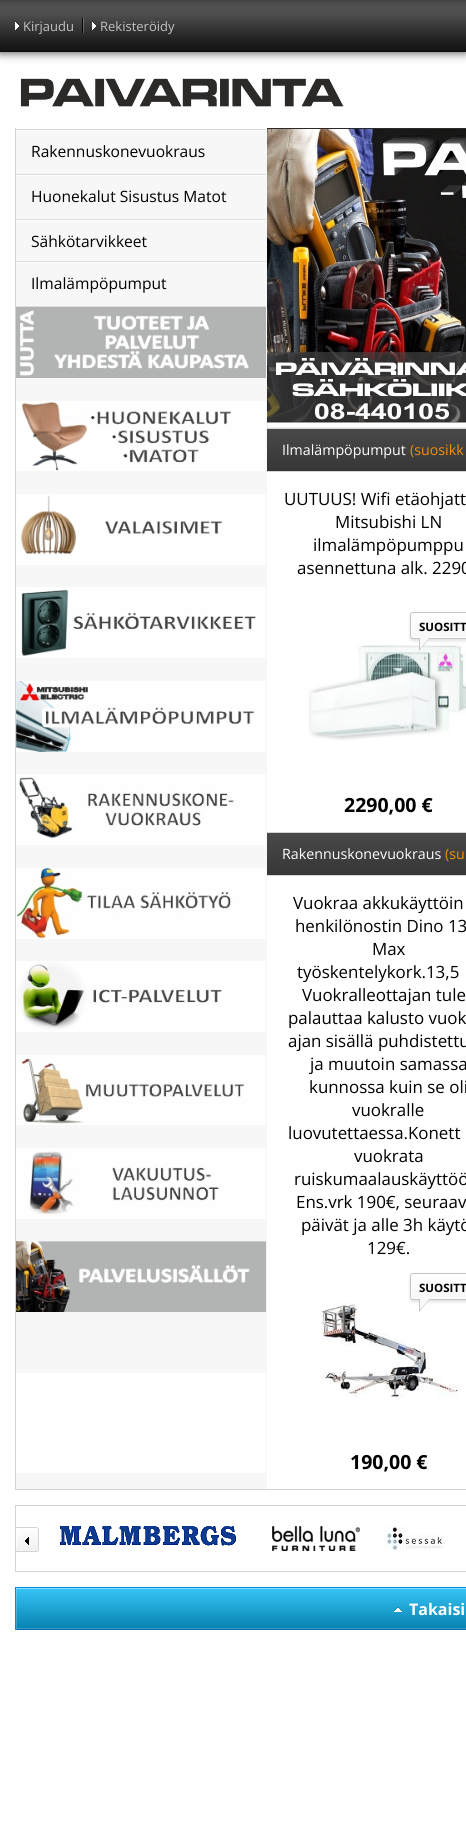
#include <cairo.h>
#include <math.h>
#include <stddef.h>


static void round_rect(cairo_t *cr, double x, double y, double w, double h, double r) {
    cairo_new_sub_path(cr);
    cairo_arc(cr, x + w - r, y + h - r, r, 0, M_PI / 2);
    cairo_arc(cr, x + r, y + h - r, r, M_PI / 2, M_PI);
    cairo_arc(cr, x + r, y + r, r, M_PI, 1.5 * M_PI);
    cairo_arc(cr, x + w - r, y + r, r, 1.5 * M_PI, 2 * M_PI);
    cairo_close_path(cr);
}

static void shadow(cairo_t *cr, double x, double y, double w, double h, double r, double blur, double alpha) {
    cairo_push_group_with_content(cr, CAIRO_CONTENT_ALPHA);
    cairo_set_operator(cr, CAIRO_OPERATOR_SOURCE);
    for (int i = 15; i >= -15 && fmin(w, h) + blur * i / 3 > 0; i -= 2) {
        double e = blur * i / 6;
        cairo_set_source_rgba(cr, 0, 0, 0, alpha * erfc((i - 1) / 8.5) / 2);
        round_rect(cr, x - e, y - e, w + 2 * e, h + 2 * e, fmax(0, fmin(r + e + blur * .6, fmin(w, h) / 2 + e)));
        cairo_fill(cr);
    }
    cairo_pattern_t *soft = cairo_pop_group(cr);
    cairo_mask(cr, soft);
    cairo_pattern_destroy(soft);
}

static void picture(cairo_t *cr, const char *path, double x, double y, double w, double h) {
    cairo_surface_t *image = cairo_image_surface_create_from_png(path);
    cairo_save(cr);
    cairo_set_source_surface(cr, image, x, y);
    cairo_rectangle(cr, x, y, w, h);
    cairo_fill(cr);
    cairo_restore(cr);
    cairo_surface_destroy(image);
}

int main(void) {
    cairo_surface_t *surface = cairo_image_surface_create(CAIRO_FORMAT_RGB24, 466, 1845);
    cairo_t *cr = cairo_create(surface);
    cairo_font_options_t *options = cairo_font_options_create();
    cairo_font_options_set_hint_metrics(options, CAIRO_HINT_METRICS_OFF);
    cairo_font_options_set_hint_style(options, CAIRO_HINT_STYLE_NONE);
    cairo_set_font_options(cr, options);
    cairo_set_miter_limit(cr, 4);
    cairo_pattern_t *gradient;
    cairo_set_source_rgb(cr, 1, 1, 1);
    cairo_paint(cr);
    cairo_set_source_rgb(cr, 0.078, 0.078, 0.078);
    shadow(cr, 0, 0, 466, 52, 0, 5, 0.86);
    gradient = cairo_pattern_create_linear(233, 0, 233, 52);
    cairo_pattern_add_color_stop_rgba(gradient, 0, 0.251, 0.251, 0.251, 1);
    cairo_pattern_add_color_stop_rgba(gradient, 0.02, 0.275, 0.275, 0.275, 1);
    cairo_pattern_add_color_stop_rgba(gradient, 0.08, 0.302, 0.302, 0.302, 1);
    cairo_pattern_add_color_stop_rgba(gradient, 0.14, 0.314, 0.314, 0.314, 1);
    cairo_pattern_add_color_stop_rgba(gradient, 0.27, 0.306, 0.306, 0.306, 1);
    cairo_pattern_add_color_stop_rgba(gradient, 0.78, 0.125, 0.125, 0.125, 1);
    cairo_pattern_add_color_stop_rgba(gradient, 0.98, 0.078, 0.078, 0.078, 1);
    cairo_pattern_add_color_stop_rgba(gradient, 1, 0.031, 0.031, 0.031, 1);
    cairo_set_source(cr, gradient);
    cairo_pattern_destroy(gradient);
    cairo_rectangle(cr, 0, 0, 466, 52);
    cairo_fill(cr);
    picture(cr, "img1.png", 82, 18, 2, 15);
    picture(cr, "img2.png", 15, 21, 4, 9);
    cairo_select_font_face(cr, "Open Sans", CAIRO_FONT_SLANT_NORMAL, CAIRO_FONT_WEIGHT_NORMAL);
    cairo_set_font_size(cr, 13);
    cairo_set_source_rgb(cr, 0.761, 0.761, 0.761);
    cairo_move_to(cr, 23, 31);
    cairo_show_text(cr, "Kirjaudu");
    picture(cr, "img2.png", 92, 21, 4, 9);
    cairo_move_to(cr, 100, 31);
    cairo_show_text(cr, "Rekisteröidy");
    picture(cr, "img3.png", 20, 78, 324, 29);
    cairo_set_source_rgb(cr, 0.965, 0.965, 0.965);
    cairo_rectangle(cr, 16, 128, 251, 1361);
    cairo_fill(cr);
    cairo_set_source_rgb(cr, 0.992, 0.992, 0.992);
    cairo_rectangle(cr, 16, 262, 250, 1);
    cairo_fill(cr);
    cairo_rectangle(cr, 16, 220, 250, 1);
    cairo_fill(cr);
    cairo_rectangle(cr, 16, 175, 250, 1);
    cairo_fill(cr);
    cairo_rectangle(cr, 16, 130, 250, 1);
    cairo_fill(cr);
    cairo_set_source_rgb(cr, 0.827, 0.827, 0.827);
    cairo_rectangle(cr, 15, 1489, 451, 1);
    cairo_fill(cr);
    cairo_rectangle(cr, 15, 128, 1, 1362);
    cairo_fill(cr);
    cairo_set_source_rgb(cr, 1, 1, 1);
    cairo_rectangle(cr, 16, 128, 250, 1);
    cairo_fill(cr);
    cairo_set_source_rgb(cr, 0.839, 0.839, 0.839);
    cairo_rectangle(cr, 16, 129, 250, 1);
    cairo_fill(cr);
    cairo_set_source_rgb(cr, 0.973, 0.973, 0.973);
    cairo_rectangle(cr, 31, 130, 1, 1);
    cairo_fill(cr);
    cairo_set_source_rgb(cr, 0.867, 0.867, 0.867);
    cairo_rectangle(cr, 16, 174, 250, 1);
    cairo_fill(cr);
    cairo_set_font_size(cr, 15.6);
    cairo_set_source_rgb(cr, 0, 0, 0);
    cairo_move_to(cr, 31, 157);
    cairo_show_text(cr, "Rakennuskonevuokraus");
    cairo_set_source_rgb(cr, 0.973, 0.973, 0.973);
    cairo_rectangle(cr, 31, 175, 1, 1);
    cairo_fill(cr);
    cairo_set_source_rgb(cr, 0.867, 0.867, 0.867);
    cairo_rectangle(cr, 16, 219, 250, 1);
    cairo_fill(cr);
    cairo_set_source_rgb(cr, 0, 0, 0);
    cairo_move_to(cr, 31, 202);
    cairo_show_text(cr, "Huonekalut Sisustus Matot");
    cairo_set_source_rgb(cr, 0.973, 0.973, 0.973);
    cairo_rectangle(cr, 31, 220, 1, 1);
    cairo_fill(cr);
    cairo_set_source_rgb(cr, 0.867, 0.867, 0.867);
    cairo_rectangle(cr, 16, 261, 250, 1);
    cairo_fill(cr);
    cairo_set_source_rgb(cr, 0, 0, 0);
    cairo_move_to(cr, 31, 247);
    cairo_show_text(cr, "Sähkötarvikkeet");
    cairo_set_source_rgb(cr, 0.973, 0.973, 0.973);
    cairo_rectangle(cr, 31, 262, 1, 1);
    cairo_fill(cr);
    cairo_set_source_rgb(cr, 0.867, 0.867, 0.867);
    cairo_rectangle(cr, 16, 306, 250, 1);
    cairo_fill(cr);
    cairo_set_source_rgb(cr, 0, 0, 0);
    cairo_move_to(cr, 31, 289);
    cairo_show_text(cr, "Ilmalämpöpumput");
    picture(cr, "img4.png", 16, 307, 250, 71);
    picture(cr, "img5.png", 16, 401, 250, 70);
    picture(cr, "img6.png", 16, 494, 250, 71);
    picture(cr, "img7.png", 16, 587, 250, 71);
    picture(cr, "img8.png", 16, 681, 250, 71);
    picture(cr, "img9.png", 16, 774, 250, 71);
    picture(cr, "img10.png", 16, 868, 250, 71);
    picture(cr, "img11.png", 16, 961, 250, 71);
    picture(cr, "img12.png", 16, 1055, 250, 70);
    picture(cr, "img13.png", 16, 1148, 250, 71);
    picture(cr, "img14.png", 16, 1241, 250, 71);
    cairo_set_source_rgb(cr, 1, 1, 1);
    cairo_rectangle(cr, 16, 1373, 250, 100);
    cairo_fill(cr);
    picture(cr, "img15.png", 267, 128, 199, 300);
    gradient = cairo_pattern_create_linear(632, 429, 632, 471);
    cairo_pattern_add_color_stop_rgba(gradient, 0, 0.286, 0.286, 0.286, 1);
    cairo_pattern_add_color_stop_rgba(gradient, 1, 0.212, 0.212, 0.212, 1);
    cairo_set_source(cr, gradient);
    cairo_pattern_destroy(gradient);
    cairo_rectangle(cr, 267, 429, 199, 42);
    cairo_fill(cr);
    cairo_set_source_rgb(cr, 0.831, 0.831, 0.831);
    cairo_rectangle(cr, 267, 428, 199, 1);
    cairo_fill(cr);
    cairo_set_font_size(cr, 14.25);
    cairo_set_source_rgb(cr, 1, 1, 1);
    cairo_move_to(cr, 282, 455);
    cairo_show_text(cr, "Ilmalämpöpumput");
    cairo_set_source_rgb(cr, 0.957, 0.561, 0);
    cairo_move_to(cr, 410, 455);
    cairo_show_text(cr, "(suosikk");
    cairo_set_source_rgb(cr, 0.831, 0.831, 0.831);
    cairo_rectangle(cr, 267, 471, 199, 1);
    cairo_fill(cr);
    cairo_set_font_size(cr, 16.9);
    cairo_set_source_rgb(cr, 0, 0, 0);
    cairo_move_to(cr, 284, 505);
    cairo_show_text(cr, "UUTUUS! Wifi etäohjatt");
    cairo_move_to(cr, 335, 528);
    cairo_show_text(cr, "Mitsubishi LN");
    cairo_move_to(cr, 313, 551);
    cairo_show_text(cr, "ilmalämpöpumppu");
    cairo_move_to(cr, 297, 574);
    cairo_show_text(cr, "asennettuna alk. 2290");
    picture(cr, "img16.png", 308, 644, 158, 97);
    cairo_set_source_rgb(cr, 0, 0, 0);
    shadow(cr, 410, 614, 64, 27, 3, 1.5, 0.12);
    cairo_save(cr);
    round_rect(cr, 410, 612, 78, 27, 3);
    cairo_clip(cr);
    gradient = cairo_pattern_create_linear(449, 613, 449, 638);
    cairo_pattern_add_color_stop_rgba(gradient, 0, 1, 1, 1, 1);
    cairo_pattern_add_color_stop_rgba(gradient, 1, 0.969, 0.969, 0.969, 1);
    cairo_set_source(cr, gradient);
    cairo_pattern_destroy(gradient);
    cairo_rectangle(cr, 410, 613, 56, 25);
    cairo_fill(cr);
    cairo_restore(cr);
    cairo_set_source_rgb(cr, 1, 1, 1);
    cairo_new_path(cr);
    cairo_move_to(cr, 413, 614);
    cairo_line_to(cr, 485, 614);
    cairo_curve_to(cr, 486, 614, 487, 615, 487, 616);
    cairo_curve_to(cr, 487, 610, 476, 613, 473, 613);
    cairo_line_to(cr, 425, 613);
    cairo_curve_to(cr, 422, 613, 411, 610, 411, 616);
    cairo_curve_to(cr, 411, 615, 412, 614, 413, 614);
    cairo_close_path(cr);
    cairo_move_to(cr, 411, 635);
    cairo_curve_to(cr, 411, 641, 422, 638, 425, 638);
    cairo_line_to(cr, 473, 638);
    cairo_curve_to(cr, 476, 638, 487, 641, 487, 635);
    cairo_curve_to(cr, 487, 636, 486, 637, 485, 637);
    cairo_line_to(cr, 413, 637);
    cairo_curve_to(cr, 412, 637, 411, 636, 411, 635);
    cairo_close_path(cr);
    cairo_fill(cr);
    cairo_new_path(cr);
    cairo_move_to(cr, 413, 613);
    cairo_curve_to(cr, 412, 613, 411, 614, 411, 615);
    cairo_line_to(cr, 411, 636);
    cairo_curve_to(cr, 411, 637, 412, 638, 413, 638);
    cairo_line_to(cr, 414, 638);
    cairo_curve_to(cr, 413, 638, 412, 637, 412, 636);
    cairo_line_to(cr, 412, 615);
    cairo_curve_to(cr, 412, 614, 413, 613, 414, 613);
    cairo_close_path(cr);
    cairo_fill(cr);
    round_rect(cr, 410.5, 612.5, 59, 26, 2.5);
    cairo_set_source_rgb(cr, 0.769, 0.769, 0.769);
    cairo_set_line_width(cr, 1);
    cairo_stroke(cr);
    cairo_select_font_face(cr, "Open Sans", CAIRO_FONT_SLANT_NORMAL, CAIRO_FONT_WEIGHT_BOLD);
    cairo_set_font_size(cr, 11.5);
    cairo_set_source_rgb(cr, 0, 0, 0);
    cairo_move_to(cr, 419, 631);
    cairo_show_text(cr, "SUOSITT");
    cairo_set_source_rgb(cr, 0.769, 0.769, 0.769);
    cairo_new_path(cr);
    cairo_move_to(cr, 419, 638);
    cairo_line_to(cr, 430, 638);
    cairo_line_to(cr, 419, 651);
    cairo_close_path(cr);
    cairo_fill(cr);
    cairo_set_source_rgb(cr, 0.969, 0.969, 0.969);
    cairo_new_path(cr);
    cairo_move_to(cr, 420, 636);
    cairo_line_to(cr, 431, 636);
    cairo_line_to(cr, 420, 649);
    cairo_close_path(cr);
    cairo_fill(cr);
    cairo_set_font_size(cr, 19.5);
    cairo_set_source_rgb(cr, 0, 0, 0);
    cairo_move_to(cr, 344, 812);
    cairo_show_text(cr, "2290,00 €");
    gradient = cairo_pattern_create_linear(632, 833, 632, 875);
    cairo_pattern_add_color_stop_rgba(gradient, 0, 0.286, 0.286, 0.286, 1);
    cairo_pattern_add_color_stop_rgba(gradient, 1, 0.212, 0.212, 0.212, 1);
    cairo_set_source(cr, gradient);
    cairo_pattern_destroy(gradient);
    cairo_rectangle(cr, 267, 833, 199, 42);
    cairo_fill(cr);
    cairo_set_source_rgb(cr, 0.831, 0.831, 0.831);
    cairo_rectangle(cr, 267, 832, 199, 1);
    cairo_fill(cr);
    cairo_select_font_face(cr, "Open Sans", CAIRO_FONT_SLANT_NORMAL, CAIRO_FONT_WEIGHT_NORMAL);
    cairo_set_font_size(cr, 14.25);
    cairo_set_source_rgb(cr, 1, 1, 1);
    cairo_move_to(cr, 282, 859);
    cairo_show_text(cr, "Rakennuskonevuokraus");
    cairo_set_source_rgb(cr, 0.957, 0.561, 0);
    cairo_move_to(cr, 445, 859);
    cairo_show_text(cr, "(su");
    cairo_set_source_rgb(cr, 0.831, 0.831, 0.831);
    cairo_rectangle(cr, 267, 875, 199, 1);
    cairo_fill(cr);
    cairo_set_font_size(cr, 16.9);
    cairo_set_source_rgb(cr, 0, 0, 0);
    cairo_move_to(cr, 293, 909);
    cairo_show_text(cr, "Vuokraa akkukäyttöin");
    cairo_move_to(cr, 295, 932);
    cairo_show_text(cr, "henkilönostin Dino 13");
    cairo_move_to(cr, 372, 955);
    cairo_show_text(cr, "Max");
    cairo_move_to(cr, 297, 978);
    cairo_show_text(cr, "työskentelykork.13,5");
    cairo_move_to(cr, 302, 1001);
    cairo_show_text(cr, "Vuokralleottajan tule");
    cairo_move_to(cr, 288, 1024);
    cairo_show_text(cr, "palauttaa kalusto vuok");
    cairo_move_to(cr, 288, 1047);
    cairo_show_text(cr, "ajan sisällä puhdistettu");
    cairo_move_to(cr, 310, 1070);
    cairo_show_text(cr, "ja muutoin samassa");
    cairo_move_to(cr, 309, 1093);
    cairo_show_text(cr, "kunnossa kuin se oli");
    cairo_move_to(cr, 352, 1116);
    cairo_show_text(cr, "vuokralle");
    cairo_move_to(cr, 288, 1139);
    cairo_show_text(cr, "luovutettaessa.Konett");
    cairo_move_to(cr, 354, 1162);
    cairo_show_text(cr, "vuokrata");
    cairo_move_to(cr, 294, 1185);
    cairo_show_text(cr, "ruiskumaalauskäyttöö");
    cairo_move_to(cr, 296, 1208);
    cairo_show_text(cr, "Ens.vrk 190€, seuraav");
    cairo_move_to(cr, 301, 1231);
    cairo_show_text(cr, "päivät ja alle 3h käytö");
    cairo_move_to(cr, 367, 1254);
    cairo_show_text(cr, "129€.");
    picture(cr, "img17.png", 321, 1301, 140, 97);
    cairo_set_source_rgb(cr, 0, 0, 0);
    shadow(cr, 410, 1275, 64, 27, 3, 1.5, 0.12);
    cairo_save(cr);
    round_rect(cr, 410, 1273, 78, 27, 3);
    cairo_clip(cr);
    gradient = cairo_pattern_create_linear(449, 1274, 449, 1299);
    cairo_pattern_add_color_stop_rgba(gradient, 0, 1, 1, 1, 1);
    cairo_pattern_add_color_stop_rgba(gradient, 1, 0.969, 0.969, 0.969, 1);
    cairo_set_source(cr, gradient);
    cairo_pattern_destroy(gradient);
    cairo_rectangle(cr, 410, 1274, 56, 25);
    cairo_fill(cr);
    cairo_restore(cr);
    cairo_set_source_rgb(cr, 1, 1, 1);
    cairo_new_path(cr);
    cairo_move_to(cr, 413, 1275);
    cairo_line_to(cr, 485, 1275);
    cairo_curve_to(cr, 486, 1275, 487, 1276, 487, 1277);
    cairo_curve_to(cr, 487, 1271, 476, 1274, 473, 1274);
    cairo_line_to(cr, 425, 1274);
    cairo_curve_to(cr, 422, 1274, 411, 1271, 411, 1277);
    cairo_curve_to(cr, 411, 1276, 412, 1275, 413, 1275);
    cairo_close_path(cr);
    cairo_move_to(cr, 411, 1296);
    cairo_curve_to(cr, 411, 1302, 422, 1299, 425, 1299);
    cairo_line_to(cr, 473, 1299);
    cairo_curve_to(cr, 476, 1299, 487, 1302, 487, 1296);
    cairo_curve_to(cr, 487, 1297, 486, 1298, 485, 1298);
    cairo_line_to(cr, 413, 1298);
    cairo_curve_to(cr, 412, 1298, 411, 1297, 411, 1296);
    cairo_close_path(cr);
    cairo_fill(cr);
    cairo_new_path(cr);
    cairo_move_to(cr, 413, 1274);
    cairo_curve_to(cr, 412, 1274, 411, 1275, 411, 1276);
    cairo_line_to(cr, 411, 1297);
    cairo_curve_to(cr, 411, 1298, 412, 1299, 413, 1299);
    cairo_line_to(cr, 414, 1299);
    cairo_curve_to(cr, 413, 1299, 412, 1298, 412, 1297);
    cairo_line_to(cr, 412, 1276);
    cairo_curve_to(cr, 412, 1275, 413, 1274, 414, 1274);
    cairo_close_path(cr);
    cairo_fill(cr);
    round_rect(cr, 410.5, 1273.5, 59, 26, 2.5);
    cairo_set_source_rgb(cr, 0.769, 0.769, 0.769);
    cairo_stroke(cr);
    cairo_select_font_face(cr, "Open Sans", CAIRO_FONT_SLANT_NORMAL, CAIRO_FONT_WEIGHT_BOLD);
    cairo_set_font_size(cr, 11.5);
    cairo_set_source_rgb(cr, 0, 0, 0);
    cairo_move_to(cr, 419, 1292);
    cairo_show_text(cr, "SUOSITT");
    cairo_set_source_rgb(cr, 0.769, 0.769, 0.769);
    cairo_new_path(cr);
    cairo_move_to(cr, 419, 1299);
    cairo_line_to(cr, 430, 1299);
    cairo_line_to(cr, 419, 1312);
    cairo_close_path(cr);
    cairo_fill(cr);
    cairo_set_source_rgb(cr, 0.969, 0.969, 0.969);
    cairo_new_path(cr);
    cairo_move_to(cr, 420, 1297);
    cairo_line_to(cr, 431, 1297);
    cairo_line_to(cr, 420, 1310);
    cairo_close_path(cr);
    cairo_fill(cr);
    cairo_set_font_size(cr, 19.5);
    cairo_set_source_rgb(cr, 0, 0, 0);
    cairo_move_to(cr, 350, 1469);
    cairo_show_text(cr, "190,00 €");
    cairo_rectangle(cr, 15.5, 1505.5, 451, 66);
    cairo_set_source_rgb(cr, 0.827, 0.827, 0.827);
    cairo_stroke(cr);
    cairo_save(cr);
    cairo_new_path(cr);
    cairo_move_to(cr, 15, 1527);
    cairo_line_to(cr, 36, 1527);
    cairo_curve_to(cr, 37.5, 1527, 39, 1528.5, 39, 1530);
    cairo_line_to(cr, 39, 1549);
    cairo_curve_to(cr, 39, 1550.5, 37.5, 1552, 36, 1552);
    cairo_line_to(cr, 15, 1552);
    cairo_close_path(cr);
    cairo_clip(cr);
    gradient = cairo_pattern_create_linear(27, 1528, 27, 1551);
    cairo_pattern_add_color_stop_rgba(gradient, 0, 1, 1, 1, 1);
    cairo_pattern_add_color_stop_rgba(gradient, 1, 0.941, 0.941, 0.941, 1);
    cairo_set_source(cr, gradient);
    cairo_pattern_destroy(gradient);
    cairo_rectangle(cr, 17, 1528, 22, 23);
    cairo_fill(cr);
    cairo_restore(cr);
    gradient = cairo_pattern_create_linear(27, 1528, 27, 1551);
    cairo_pattern_add_color_stop_rgba(gradient, 0, 1, 1, 1, 1);
    cairo_pattern_add_color_stop_rgba(gradient, 1, 0.953, 0.953, 0.953, 1);
    cairo_set_source(cr, gradient);
    cairo_pattern_destroy(gradient);
    cairo_rectangle(cr, 16, 1547, 1, 4);
    cairo_fill(cr);
    cairo_set_source_rgba(cr, 1, 1, 1, 0.2);
    cairo_new_path(cr);
    cairo_move_to(cr, 16, 1550);
    cairo_line_to(cr, 16, 1551);
    cairo_line_to(cr, 36, 1551);
    cairo_curve_to(cr, 37, 1551, 38, 1550, 38, 1549);
    cairo_line_to(cr, 38, 1548);
    cairo_curve_to(cr, 38, 1549, 37, 1550, 36, 1550);
    cairo_close_path(cr);
    cairo_fill(cr);
    cairo_new_path(cr);
    cairo_move_to(cr, 15.5, 1527.5);
    cairo_line_to(cr, 36, 1527.5);
    cairo_curve_to(cr, 37.5, 1527.5, 38.5, 1528.5, 38.5, 1530);
    cairo_line_to(cr, 38.5, 1549);
    cairo_curve_to(cr, 38.5, 1550.5, 37.5, 1551.5, 36, 1551.5);
    cairo_line_to(cr, 15.5, 1551.5);
    cairo_close_path(cr);
    cairo_set_source_rgb(cr, 0.831, 0.831, 0.831);
    cairo_stroke(cr);
    picture(cr, "img18.png", 25, 1537, 4, 9);
    picture(cr, "img19.png", 60, 1526, 176, 20);
    picture(cr, "img20.png", 272, 1526, 88, 25);
    picture(cr, "img21.png", 384, 1526, 62, 25);
    gradient = cairo_pattern_create_linear(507, 1588, 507, 1629);
    cairo_pattern_add_color_stop_rgba(gradient, 0, 0.212, 0.769, 0.969, 1);
    cairo_pattern_add_color_stop_rgba(gradient, 1, 0.024, 0.514, 0.69, 1);
    cairo_set_source(cr, gradient);
    cairo_pattern_destroy(gradient);
    cairo_rectangle(cr, 17, 1589, 449, 39);
    cairo_fill(cr);
    gradient = cairo_pattern_create_linear(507, 1588, 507, 1629);
    cairo_pattern_add_color_stop_rgba(gradient, 0, 0.525, 0.863, 0.98, 1);
    cairo_pattern_add_color_stop_rgba(gradient, 1, 0.416, 0.71, 0.816, 1);
    cairo_set_source(cr, gradient);
    cairo_pattern_destroy(gradient);
    cairo_rectangle(cr, 16, 1588, 450, 1);
    cairo_fill(cr);
    gradient = cairo_pattern_create_linear(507, 1588, 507, 1629);
    cairo_pattern_add_color_stop_rgba(gradient, 0, 0.369, 0.816, 0.976, 1);
    cairo_pattern_add_color_stop_rgba(gradient, 1, 0.22, 0.612, 0.753, 1);
    cairo_set_source(cr, gradient);
    cairo_pattern_destroy(gradient);
    cairo_rectangle(cr, 16, 1628, 450, 1);
    cairo_fill(cr);
    cairo_rectangle(cr, 16, 1588, 1, 41);
    cairo_fill(cr);
    gradient = cairo_pattern_create_linear(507, 1588, 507, 1629);
    cairo_pattern_add_color_stop_rgba(gradient, 0, 0.62, 0.89, 0.984, 1);
    cairo_pattern_add_color_stop_rgba(gradient, 1, 0.533, 0.769, 0.851, 1);
    cairo_set_source(cr, gradient);
    cairo_pattern_destroy(gradient);
    cairo_rectangle(cr, 16, 1588, 1, 1);
    cairo_fill(cr);
    gradient = cairo_pattern_create_linear(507, 1588, 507, 1629);
    cairo_pattern_add_color_stop_rgba(gradient, 0, 0.494, 0.851, 0.98, 1);
    cairo_pattern_add_color_stop_rgba(gradient, 1, 0.376, 0.69, 0.804, 1);
    cairo_set_source(cr, gradient);
    cairo_pattern_destroy(gradient);
    cairo_rectangle(cr, 16, 1628, 1, 1);
    cairo_fill(cr);
    cairo_set_source_rgb(cr, 0.02, 0.537, 0.882);
    cairo_rectangle(cr, 15, 1587, 451, 1);
    cairo_fill(cr);
    cairo_set_source_rgb(cr, 0, 0.42, 0.698);
    cairo_rectangle(cr, 15, 1629, 451, 1);
    cairo_fill(cr);
    cairo_set_source_rgb(cr, 0.02, 0.537, 0.882);
    cairo_rectangle(cr, 15, 1587, 1, 43);
    cairo_fill(cr);
    picture(cr, "img22.png", 394, 1607, 8, 5);
    cairo_set_font_size(cr, 16);
    cairo_set_source_rgb(cr, 1, 1, 1);
    cairo_move_to(cr, 409, 1615);
    cairo_show_text(cr, "Takaisi");
    cairo_surface_write_to_png(surface, "page.png");
    cairo_font_options_destroy(options);
    cairo_destroy(cr);
    cairo_surface_destroy(surface);
    return 0;
}
